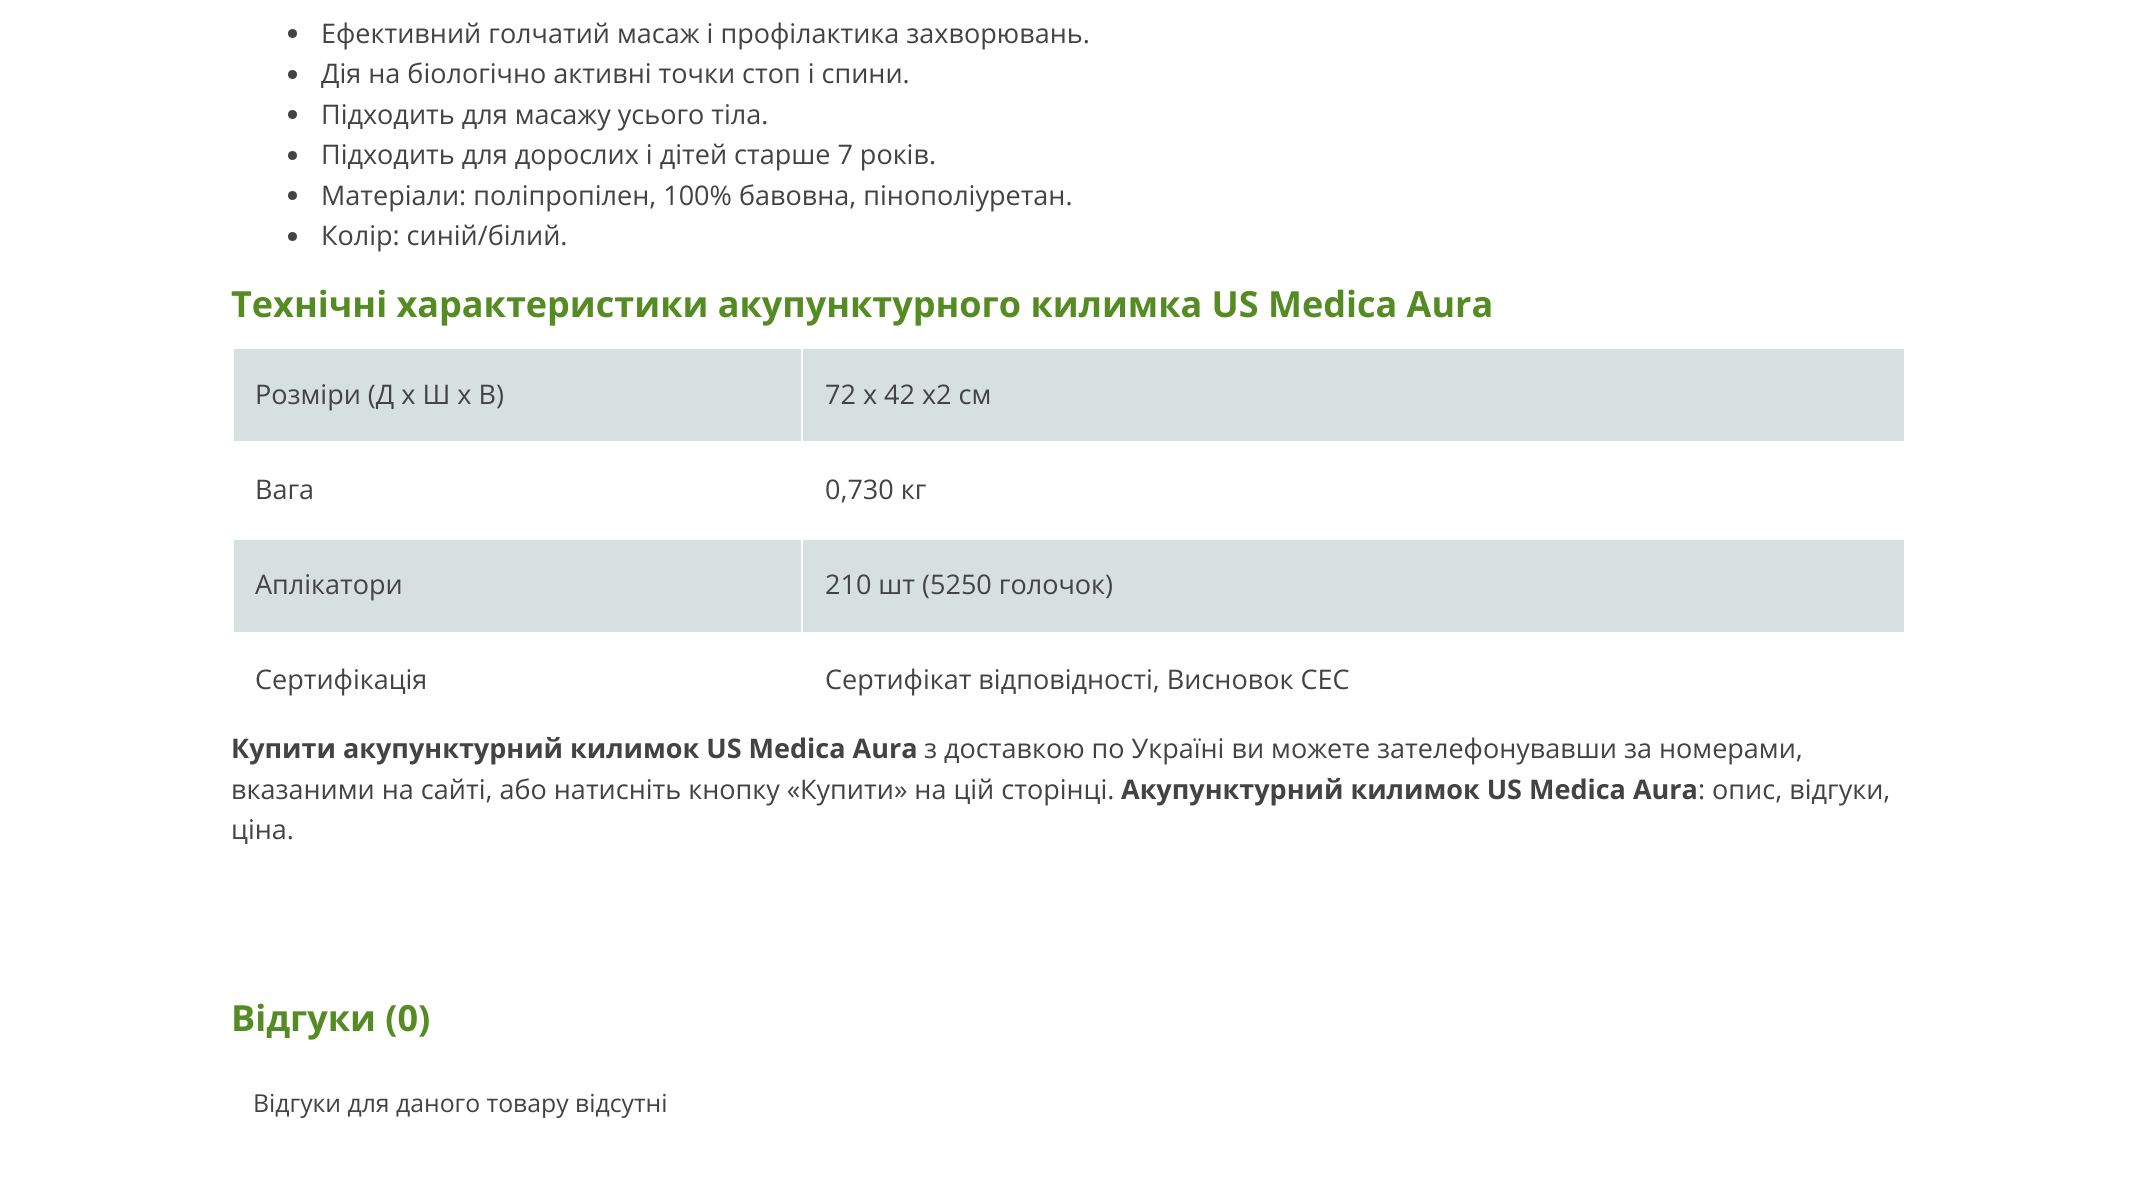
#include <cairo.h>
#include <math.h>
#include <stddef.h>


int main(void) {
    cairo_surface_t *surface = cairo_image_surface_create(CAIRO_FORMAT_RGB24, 2140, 1189);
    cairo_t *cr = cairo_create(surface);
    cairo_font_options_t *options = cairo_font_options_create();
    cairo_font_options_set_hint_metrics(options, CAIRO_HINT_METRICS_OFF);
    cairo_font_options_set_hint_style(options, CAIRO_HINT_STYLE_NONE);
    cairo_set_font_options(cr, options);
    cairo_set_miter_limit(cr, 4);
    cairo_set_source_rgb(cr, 1, 1, 1);
    cairo_paint(cr);
    cairo_set_source_rgb(cr, 0.263, 0.263, 0.263);
    cairo_arc(cr, 292.5, 33.5, 4.5, 0, 2 * M_PI);
    cairo_fill(cr);
    cairo_select_font_face(cr, "Open Sans", CAIRO_FONT_SLANT_NORMAL, CAIRO_FONT_WEIGHT_NORMAL);
    cairo_set_font_size(cr, 27);
    cairo_move_to(cr, 321, 43);
    cairo_show_text(cr, "Ефективний голчатий масаж і профілактика захворювань.");
    cairo_new_path(cr);
    cairo_arc(cr, 292.5, 74.5, 4.5, 0, 2 * M_PI);
    cairo_fill(cr);
    cairo_move_to(cr, 321, 83);
    cairo_show_text(cr, "Дія на біологічно активні точки стоп і спини.");
    cairo_new_path(cr);
    cairo_arc(cr, 292.5, 114.5, 4.5, 0, 2 * M_PI);
    cairo_fill(cr);
    cairo_move_to(cr, 321, 124);
    cairo_show_text(cr, "Підходить для масажу усього тіла.");
    cairo_new_path(cr);
    cairo_arc(cr, 292.5, 155.5, 4.5, 0, 2 * M_PI);
    cairo_fill(cr);
    cairo_move_to(cr, 321, 164);
    cairo_show_text(cr, "Підходить для дорослих і дітей старше 7 років.");
    cairo_new_path(cr);
    cairo_arc(cr, 292.5, 195.5, 4.5, 0, 2 * M_PI);
    cairo_fill(cr);
    cairo_move_to(cr, 321, 205);
    cairo_show_text(cr, "Матеріали: поліпропілен, 100% бавовна, пінополіуретан.");
    cairo_new_path(cr);
    cairo_arc(cr, 292.5, 236.5, 4.5, 0, 2 * M_PI);
    cairo_fill(cr);
    cairo_move_to(cr, 321, 245);
    cairo_show_text(cr, "Колір: синій/білий.");
    cairo_select_font_face(cr, "Open Sans", CAIRO_FONT_SLANT_NORMAL, CAIRO_FONT_WEIGHT_BOLD);
    cairo_set_font_size(cr, 36);
    cairo_set_source_rgb(cr, 0.329, 0.545, 0.133);
    cairo_move_to(cr, 231, 317);
    cairo_show_text(cr, "Технічні характеристики акупунктурного килимка US Medica Aura");
    cairo_set_source_rgb(cr, 0.839, 0.878, 0.878);
    cairo_rectangle(cr, 234, 349, 567, 92);
    cairo_fill(cr);
    cairo_select_font_face(cr, "Open Sans", CAIRO_FONT_SLANT_NORMAL, CAIRO_FONT_WEIGHT_NORMAL);
    cairo_set_font_size(cr, 27);
    cairo_set_source_rgb(cr, 0.263, 0.263, 0.263);
    cairo_move_to(cr, 255, 404);
    cairo_show_text(cr, "Розміри (Д х Ш х В)");
    cairo_set_source_rgb(cr, 0.839, 0.878, 0.878);
    cairo_rectangle(cr, 803, 349, 1101, 92);
    cairo_fill(cr);
    cairo_set_source_rgb(cr, 0.263, 0.263, 0.263);
    cairo_move_to(cr, 825, 404);
    cairo_show_text(cr, "72 х 42 х2 см");
    cairo_move_to(cr, 255, 499);
    cairo_show_text(cr, "Вага");
    cairo_move_to(cr, 825, 499);
    cairo_show_text(cr, "0,730 кг");
    cairo_set_source_rgb(cr, 0.839, 0.878, 0.878);
    cairo_rectangle(cr, 234, 540, 567, 92);
    cairo_fill(cr);
    cairo_set_source_rgb(cr, 0.263, 0.263, 0.263);
    cairo_move_to(cr, 255, 594);
    cairo_show_text(cr, "Аплікатори");
    cairo_set_source_rgb(cr, 0.839, 0.878, 0.878);
    cairo_rectangle(cr, 803, 540, 1101, 92);
    cairo_fill(cr);
    cairo_set_source_rgb(cr, 0.263, 0.263, 0.263);
    cairo_move_to(cr, 825, 594);
    cairo_show_text(cr, "210 шт (5250 голочок)");
    cairo_move_to(cr, 255, 689);
    cairo_show_text(cr, "Сертифікація");
    cairo_move_to(cr, 825, 689);
    cairo_show_text(cr, "Сертифікат відповідності, Висновок СЕС");
    cairo_select_font_face(cr, "Open Sans", CAIRO_FONT_SLANT_NORMAL, CAIRO_FONT_WEIGHT_BOLD);
    cairo_move_to(cr, 231, 758);
    cairo_show_text(cr, "Купити акупунктурний килимок US Medica Aura");
    cairo_select_font_face(cr, "Open Sans", CAIRO_FONT_SLANT_NORMAL, CAIRO_FONT_WEIGHT_NORMAL);
    cairo_move_to(cr, 924, 758);
    cairo_show_text(cr, "з доставкою по Україні ви можете зателефонувавши за номерами,");
    cairo_move_to(cr, 231, 799);
    cairo_show_text(cr, "вказаними на сайті, або натисніть кнопку «Купити» на цій сторінці.");
    cairo_select_font_face(cr, "Open Sans", CAIRO_FONT_SLANT_NORMAL, CAIRO_FONT_WEIGHT_BOLD);
    cairo_move_to(cr, 1121, 799);
    cairo_show_text(cr, "Акупунктурний килимок US Medica Aura");
    cairo_select_font_face(cr, "Open Sans", CAIRO_FONT_SLANT_NORMAL, CAIRO_FONT_WEIGHT_NORMAL);
    cairo_move_to(cr, 1698, 799);
    cairo_show_text(cr, ": опис, відгуки,");
    cairo_move_to(cr, 231, 839);
    cairo_show_text(cr, "ціна.");
    cairo_select_font_face(cr, "Open Sans", CAIRO_FONT_SLANT_NORMAL, CAIRO_FONT_WEIGHT_BOLD);
    cairo_set_font_size(cr, 36);
    cairo_set_source_rgb(cr, 0.329, 0.545, 0.133);
    cairo_move_to(cr, 231, 1031);
    cairo_show_text(cr, "Відгуки (0)");
    cairo_select_font_face(cr, "Open Sans", CAIRO_FONT_SLANT_NORMAL, CAIRO_FONT_WEIGHT_NORMAL);
    cairo_set_font_size(cr, 24.75);
    cairo_set_source_rgb(cr, 0.263, 0.263, 0.263);
    cairo_move_to(cr, 253, 1112);
    cairo_show_text(cr, "Відгуки для даного товару відсутні");
    cairo_surface_write_to_png(surface, "page.png");
    cairo_font_options_destroy(options);
    cairo_destroy(cr);
    cairo_surface_destroy(surface);
    return 0;
}
